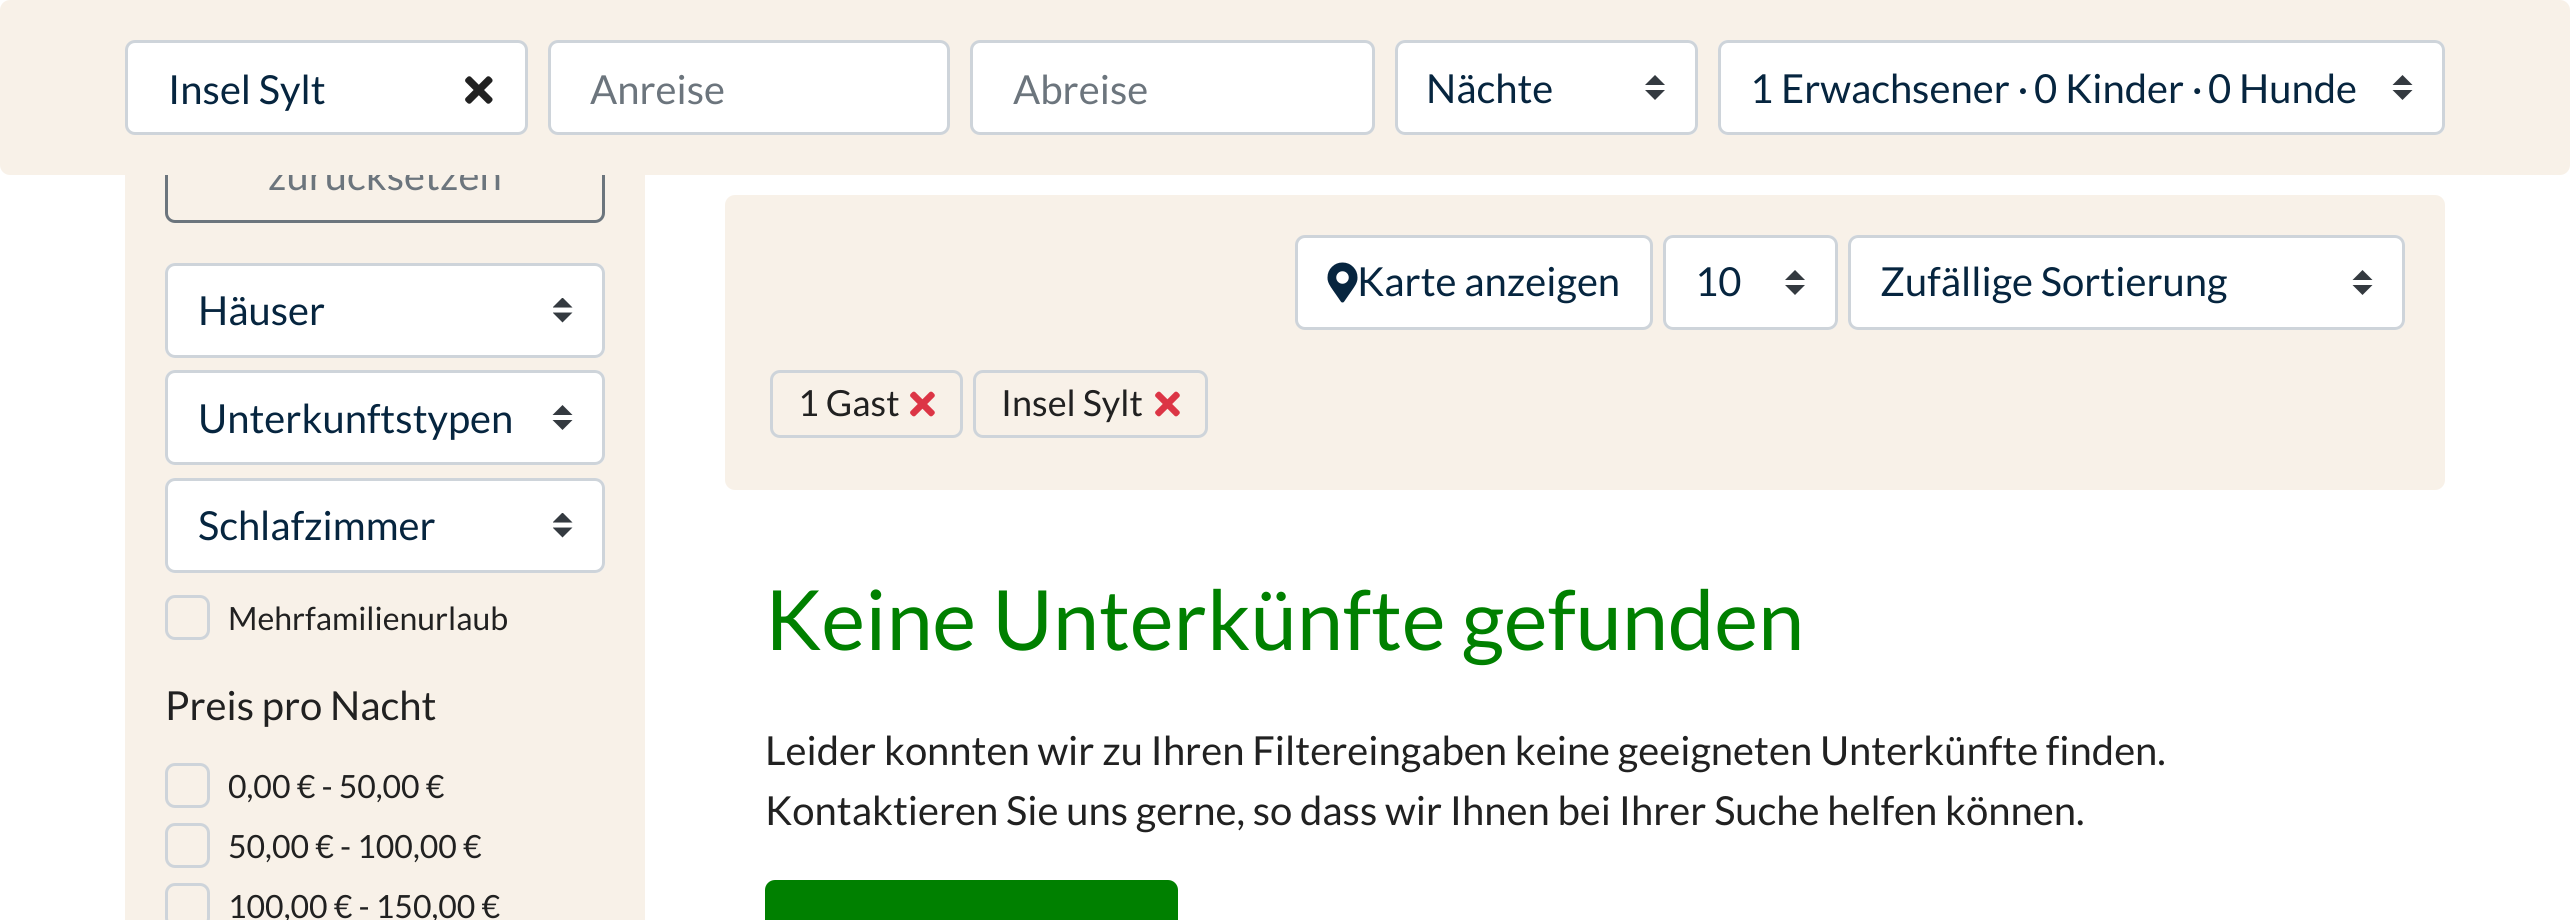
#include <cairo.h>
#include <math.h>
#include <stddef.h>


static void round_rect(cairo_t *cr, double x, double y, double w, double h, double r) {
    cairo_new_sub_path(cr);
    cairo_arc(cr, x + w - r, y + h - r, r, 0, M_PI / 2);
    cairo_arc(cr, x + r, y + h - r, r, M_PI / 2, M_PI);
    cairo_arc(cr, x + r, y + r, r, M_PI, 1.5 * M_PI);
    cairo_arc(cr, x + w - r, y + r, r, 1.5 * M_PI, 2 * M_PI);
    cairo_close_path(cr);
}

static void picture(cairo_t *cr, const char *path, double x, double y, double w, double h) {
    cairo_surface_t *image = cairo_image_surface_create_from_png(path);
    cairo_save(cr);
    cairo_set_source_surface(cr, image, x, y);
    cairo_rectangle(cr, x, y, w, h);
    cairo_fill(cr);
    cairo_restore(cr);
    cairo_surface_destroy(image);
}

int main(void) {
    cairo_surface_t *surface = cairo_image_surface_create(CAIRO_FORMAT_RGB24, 2570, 920);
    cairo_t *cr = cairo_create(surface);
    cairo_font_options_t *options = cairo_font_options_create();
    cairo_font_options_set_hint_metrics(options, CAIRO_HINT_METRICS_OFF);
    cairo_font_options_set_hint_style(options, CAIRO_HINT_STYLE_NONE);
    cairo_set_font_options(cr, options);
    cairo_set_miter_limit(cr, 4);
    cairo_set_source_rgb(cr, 1, 1, 1);
    cairo_paint(cr);
    cairo_set_source_rgb(cr, 0.969, 0.945, 0.91);
    cairo_rectangle(cr, 125, 175, 520, 745);
    cairo_fill(cr);
    round_rect(cr, 166.5, 69.5, 437, 152, 8.5);
    cairo_set_source_rgb(cr, 0.424, 0.459, 0.49);
    cairo_set_line_width(cr, 3);
    cairo_stroke(cr);
    cairo_select_font_face(cr, "Lato", CAIRO_FONT_SLANT_NORMAL, CAIRO_FONT_WEIGHT_NORMAL);
    cairo_set_font_size(cr, 40);
    cairo_move_to(cr, 268, 190);
    cairo_show_text(cr, "zurücksetzen");
    cairo_set_source_rgb(cr, 0.969, 0.945, 0.91);
    round_rect(cr, 0, 0, 2570, 175, 10);
    cairo_fill(cr);
    cairo_set_source_rgb(cr, 1, 1, 1);
    round_rect(cr, 126.5, 41.5, 400, 92, 8.5);
    cairo_fill_preserve(cr);
    cairo_set_source_rgb(cr, 0.808, 0.831, 0.855);
    cairo_stroke(cr);
    cairo_set_source_rgb(cr, 0.027, 0.145, 0.247);
    cairo_move_to(cr, 168, 104);
    cairo_show_text(cr, "Insel Sylt");
    picture(cr, "img1.png", 465, 76, 28, 28);
    cairo_set_source_rgb(cr, 1, 1, 1);
    round_rect(cr, 549.5, 41.5, 399, 92, 8.5);
    cairo_fill_preserve(cr);
    cairo_set_source_rgb(cr, 0.808, 0.831, 0.855);
    cairo_stroke(cr);
    cairo_set_source_rgb(cr, 0.424, 0.459, 0.49);
    cairo_move_to(cr, 590, 104);
    cairo_show_text(cr, "Anreise");
    cairo_set_source_rgb(cr, 1, 1, 1);
    round_rect(cr, 971.5, 41.5, 402, 92, 8.5);
    cairo_fill_preserve(cr);
    cairo_set_source_rgb(cr, 0.808, 0.831, 0.855);
    cairo_stroke(cr);
    cairo_set_source_rgb(cr, 0.424, 0.459, 0.49);
    cairo_move_to(cr, 1013, 104);
    cairo_show_text(cr, "Abreise");
    cairo_set_source_rgb(cr, 1, 1, 1);
    round_rect(cr, 1395, 40, 303, 95, 10);
    cairo_fill(cr);
    cairo_set_source_rgb(cr, 0.204, 0.227, 0.251);
    cairo_new_path(cr);
    cairo_move_to(cr, 1655, 75);
    cairo_line_to(cr, 1645, 85);
    cairo_line_to(cr, 1665, 85);
    cairo_close_path(cr);
    cairo_move_to(cr, 1655, 100);
    cairo_line_to(cr, 1645, 90);
    cairo_line_to(cr, 1665, 90);
    cairo_close_path(cr);
    cairo_fill(cr);
    round_rect(cr, 1396.5, 41.5, 300, 92, 8.5);
    cairo_set_source_rgb(cr, 0.808, 0.831, 0.855);
    cairo_stroke(cr);
    cairo_set_source_rgb(cr, 0.027, 0.145, 0.247);
    cairo_move_to(cr, 1426, 103);
    cairo_show_text(cr, "Nächte");
    cairo_set_source_rgb(cr, 1, 1, 1);
    round_rect(cr, 1718, 40, 727, 95, 10);
    cairo_fill(cr);
    cairo_set_source_rgb(cr, 0.204, 0.227, 0.251);
    cairo_new_path(cr);
    cairo_move_to(cr, 2402.5, 75);
    cairo_line_to(cr, 2392.5, 85);
    cairo_line_to(cr, 2412.5, 85);
    cairo_close_path(cr);
    cairo_move_to(cr, 2402.5, 100);
    cairo_line_to(cr, 2392.5, 90);
    cairo_line_to(cr, 2412.5, 90);
    cairo_close_path(cr);
    cairo_fill(cr);
    round_rect(cr, 1719.5, 41.5, 724, 92, 8.5);
    cairo_set_source_rgb(cr, 0.808, 0.831, 0.855);
    cairo_stroke(cr);
    cairo_set_source_rgb(cr, 0.027, 0.145, 0.247);
    cairo_move_to(cr, 1750, 103);
    cairo_show_text(cr, "1 Erwachsener ·");
    cairo_move_to(cr, 2034, 103);
    cairo_show_text(cr, "0 Kinder ·");
    cairo_move_to(cr, 2208, 103);
    cairo_show_text(cr, "0 Hunde");
    cairo_set_source_rgb(cr, 1, 1, 1);
    round_rect(cr, 165, 263, 440, 95, 10);
    cairo_fill(cr);
    cairo_save(cr);
    cairo_rectangle(cr, 553, 298, 20, 25);
    cairo_clip(cr);
    cairo_set_source_rgb(cr, 0.204, 0.227, 0.251);
    cairo_new_path(cr);
    cairo_move_to(cr, 562.5, 297.5);
    cairo_line_to(cr, 552.5, 307.5);
    cairo_line_to(cr, 572.5, 307.5);
    cairo_close_path(cr);
    cairo_move_to(cr, 562.5, 322.5);
    cairo_line_to(cr, 552.5, 312.5);
    cairo_line_to(cr, 572.5, 312.5);
    cairo_close_path(cr);
    cairo_fill(cr);
    cairo_restore(cr);
    round_rect(cr, 166.5, 264.5, 437, 92, 8.5);
    cairo_set_source_rgb(cr, 0.808, 0.831, 0.855);
    cairo_stroke(cr);
    cairo_set_source_rgb(cr, 0.027, 0.145, 0.247);
    cairo_move_to(cr, 198, 325);
    cairo_show_text(cr, "Häuser");
    cairo_set_source_rgb(cr, 1, 1, 1);
    round_rect(cr, 165, 370, 440, 95, 10);
    cairo_fill(cr);
    cairo_set_source_rgb(cr, 0.204, 0.227, 0.251);
    cairo_new_path(cr);
    cairo_move_to(cr, 562.5, 405);
    cairo_line_to(cr, 552.5, 415);
    cairo_line_to(cr, 572.5, 415);
    cairo_close_path(cr);
    cairo_move_to(cr, 562.5, 430);
    cairo_line_to(cr, 552.5, 420);
    cairo_line_to(cr, 572.5, 420);
    cairo_close_path(cr);
    cairo_fill(cr);
    round_rect(cr, 166.5, 371.5, 437, 92, 8.5);
    cairo_set_source_rgb(cr, 0.808, 0.831, 0.855);
    cairo_stroke(cr);
    cairo_set_source_rgb(cr, 0.027, 0.145, 0.247);
    cairo_move_to(cr, 198, 433);
    cairo_show_text(cr, "Unterkunftstypen");
    cairo_set_source_rgb(cr, 1, 1, 1);
    round_rect(cr, 165, 478, 440, 95, 10);
    cairo_fill(cr);
    cairo_save(cr);
    cairo_rectangle(cr, 553, 513, 20, 25);
    cairo_clip(cr);
    cairo_set_source_rgb(cr, 0.204, 0.227, 0.251);
    cairo_new_path(cr);
    cairo_move_to(cr, 562.5, 512.5);
    cairo_line_to(cr, 552.5, 522.5);
    cairo_line_to(cr, 572.5, 522.5);
    cairo_close_path(cr);
    cairo_move_to(cr, 562.5, 537.5);
    cairo_line_to(cr, 552.5, 527.5);
    cairo_line_to(cr, 572.5, 527.5);
    cairo_close_path(cr);
    cairo_fill(cr);
    cairo_restore(cr);
    round_rect(cr, 166.5, 479.5, 437, 92, 8.5);
    cairo_set_source_rgb(cr, 0.808, 0.831, 0.855);
    cairo_stroke(cr);
    cairo_set_source_rgb(cr, 0.027, 0.145, 0.247);
    cairo_move_to(cr, 198, 540);
    cairo_show_text(cr, "Schlafzimmer");
    round_rect(cr, 166.5, 596.5, 42, 42, 8.5);
    cairo_set_source_rgb(cr, 0.808, 0.831, 0.855);
    cairo_stroke(cr);
    cairo_set_font_size(cr, 32);
    cairo_set_source_rgb(cr, 0.129, 0.129, 0.129);
    cairo_move_to(cr, 228, 630);
    cairo_show_text(cr, "Mehrfamilienurlaub");
    cairo_set_font_size(cr, 40);
    cairo_move_to(cr, 165, 720);
    cairo_show_text(cr, "Preis pro Nacht");
    round_rect(cr, 166.5, 764.5, 42, 42, 8.5);
    cairo_set_source_rgb(cr, 0.808, 0.831, 0.855);
    cairo_stroke(cr);
    cairo_set_font_size(cr, 32);
    cairo_set_source_rgb(cr, 0.129, 0.129, 0.129);
    cairo_move_to(cr, 228, 798);
    cairo_show_text(cr, "0,00 € - 50,00 €");
    round_rect(cr, 166.5, 824.5, 42, 42, 8.5);
    cairo_set_source_rgb(cr, 0.808, 0.831, 0.855);
    cairo_stroke(cr);
    cairo_set_source_rgb(cr, 0.129, 0.129, 0.129);
    cairo_move_to(cr, 228, 858);
    cairo_show_text(cr, "50,00 € - 100,00 €");
    round_rect(cr, 166.5, 884.5, 42, 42, 8.5);
    cairo_set_source_rgb(cr, 0.808, 0.831, 0.855);
    cairo_stroke(cr);
    cairo_set_source_rgb(cr, 0.129, 0.129, 0.129);
    cairo_move_to(cr, 228, 918);
    cairo_show_text(cr, "100,00 € - 150,00 €");
    cairo_set_source_rgb(cr, 0.969, 0.945, 0.91);
    round_rect(cr, 725, 195, 1720, 295, 10);
    cairo_fill(cr);
    cairo_set_source_rgb(cr, 1, 1, 1);
    round_rect(cr, 1296.5, 236.5, 355, 92, 8.5);
    cairo_fill_preserve(cr);
    cairo_set_source_rgb(cr, 0.808, 0.831, 0.855);
    cairo_stroke(cr);
    picture(cr, "img2.png", 1327, 262, 31, 41);
    cairo_set_font_size(cr, 40);
    cairo_set_source_rgb(cr, 0.027, 0.145, 0.247);
    cairo_move_to(cr, 1357, 296);
    cairo_show_text(cr, "Karte anzeigen");
    cairo_set_source_rgb(cr, 1, 1, 1);
    round_rect(cr, 1663, 235, 175, 95, 10);
    cairo_fill(cr);
    cairo_set_source_rgb(cr, 0.204, 0.227, 0.251);
    cairo_new_path(cr);
    cairo_move_to(cr, 1795, 270);
    cairo_line_to(cr, 1785, 280);
    cairo_line_to(cr, 1805, 280);
    cairo_close_path(cr);
    cairo_move_to(cr, 1795, 295);
    cairo_line_to(cr, 1785, 285);
    cairo_line_to(cr, 1805, 285);
    cairo_close_path(cr);
    cairo_fill(cr);
    round_rect(cr, 1664.5, 236.5, 172, 92, 8.5);
    cairo_set_source_rgb(cr, 0.808, 0.831, 0.855);
    cairo_stroke(cr);
    cairo_set_source_rgb(cr, 0.027, 0.145, 0.247);
    cairo_move_to(cr, 1695, 296);
    cairo_show_text(cr, "10");
    cairo_set_source_rgb(cr, 1, 1, 1);
    round_rect(cr, 1848, 235, 557, 95, 10);
    cairo_fill(cr);
    cairo_set_source_rgb(cr, 0.204, 0.227, 0.251);
    cairo_new_path(cr);
    cairo_move_to(cr, 2362.5, 270);
    cairo_line_to(cr, 2352.5, 280);
    cairo_line_to(cr, 2372.5, 280);
    cairo_close_path(cr);
    cairo_move_to(cr, 2362.5, 295);
    cairo_line_to(cr, 2352.5, 285);
    cairo_line_to(cr, 2372.5, 285);
    cairo_close_path(cr);
    cairo_fill(cr);
    round_rect(cr, 1849.5, 236.5, 554, 92, 8.5);
    cairo_set_source_rgb(cr, 0.808, 0.831, 0.855);
    cairo_stroke(cr);
    cairo_set_source_rgb(cr, 0.027, 0.145, 0.247);
    cairo_move_to(cr, 1880, 296);
    cairo_show_text(cr, "Zufällige Sortierung");
    round_rect(cr, 771.5, 371.5, 190, 65, 8.5);
    cairo_set_source_rgb(cr, 0.808, 0.831, 0.855);
    cairo_stroke(cr);
    cairo_set_font_size(cr, 36);
    cairo_set_source_rgb(cr, 0.129, 0.129, 0.129);
    cairo_move_to(cr, 798, 416);
    cairo_show_text(cr, "1 Gast");
    picture(cr, "img3.png", 910, 391, 25, 26);
    round_rect(cr, 974.5, 371.5, 232, 65, 8.5);
    cairo_set_source_rgb(cr, 0.808, 0.831, 0.855);
    cairo_stroke(cr);
    cairo_set_source_rgb(cr, 0.129, 0.129, 0.129);
    cairo_move_to(cr, 1001, 416);
    cairo_show_text(cr, "Insel Sylt");
    picture(cr, "img3.png", 1155, 391, 25, 26);
    cairo_set_font_size(cr, 83.1);
    cairo_set_source_rgb(cr, 0, 0.502, 0);
    cairo_move_to(cr, 765, 650);
    cairo_show_text(cr, "Keine Unterkünfte gefunden");
    cairo_set_font_size(cr, 40);
    cairo_set_source_rgb(cr, 0.129, 0.129, 0.129);
    cairo_move_to(cr, 765, 765);
    cairo_show_text(cr, "Leider konnten wir zu Ihren Filtereingaben keine geeigneten Unterkünfte finden.");
    cairo_move_to(cr, 765, 825);
    cairo_show_text(cr, "Kontaktieren Sie uns gerne, so dass wir Ihnen bei Ihrer Suche helfen können.");
    cairo_set_source_rgb(cr, 0, 0.502, 0);
    round_rect(cr, 766.5, 881.5, 410, 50, 8.5);
    cairo_fill_preserve(cr);
    cairo_stroke(cr);
    cairo_surface_write_to_png(surface, "page.png");
    cairo_font_options_destroy(options);
    cairo_destroy(cr);
    cairo_surface_destroy(surface);
    return 0;
}
